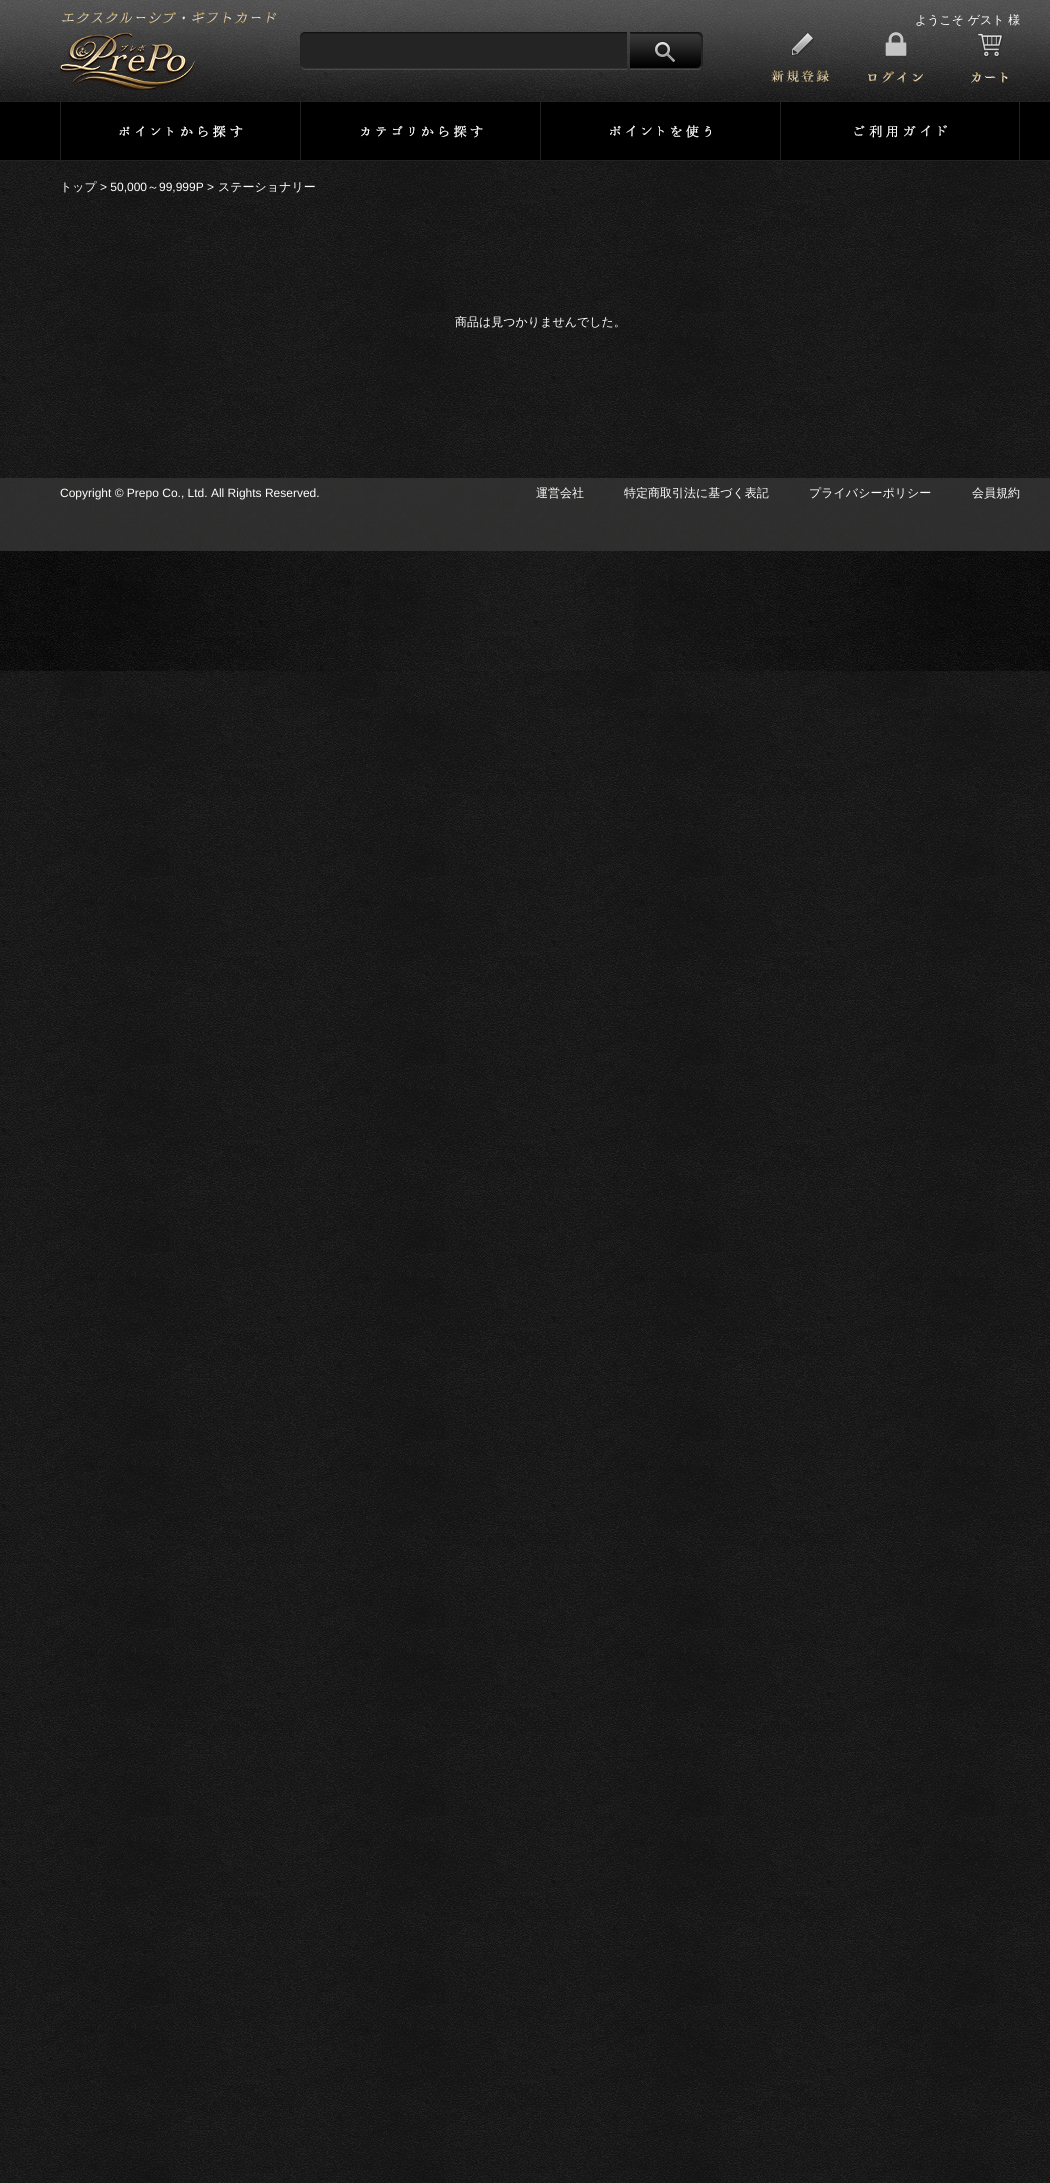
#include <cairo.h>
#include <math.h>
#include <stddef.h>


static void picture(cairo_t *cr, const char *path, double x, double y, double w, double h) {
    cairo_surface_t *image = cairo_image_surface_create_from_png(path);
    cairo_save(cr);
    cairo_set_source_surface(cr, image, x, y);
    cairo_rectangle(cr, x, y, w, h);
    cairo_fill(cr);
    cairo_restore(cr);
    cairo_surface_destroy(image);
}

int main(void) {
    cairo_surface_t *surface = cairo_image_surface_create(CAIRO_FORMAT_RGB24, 1050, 2183);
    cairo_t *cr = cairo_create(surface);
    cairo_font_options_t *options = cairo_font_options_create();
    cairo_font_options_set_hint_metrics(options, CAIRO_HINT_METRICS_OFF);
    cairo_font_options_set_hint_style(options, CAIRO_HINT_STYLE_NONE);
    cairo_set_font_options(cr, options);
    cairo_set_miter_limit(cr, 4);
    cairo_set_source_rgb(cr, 1, 1, 1);
    cairo_paint(cr);
    picture(cr, "img1.png", 0, 161, 1050, 2022);
    picture(cr, "img2.png", 0, 0, 1050, 161);
    picture(cr, "img3.png", 60, 12, 217, 78);
    cairo_select_font_face(cr, "WenQuanYi Zen Hei Medium", CAIRO_FONT_SLANT_NORMAL, CAIRO_FONT_WEIGHT_NORMAL);
    cairo_set_font_size(cr, 12);
    cairo_set_source_rgb(cr, 1, 1, 1);
    cairo_move_to(cr, 915, 24);
    cairo_show_text(cr, "ようこそ ゲスト 様");
    picture(cr, "img4.png", 300, 32, 327, 38);
    picture(cr, "img5.png", 630, 32, 73, 38);
    picture(cr, "img6.png", 771, 32, 58, 51);
    picture(cr, "img7.png", 868, 32, 55, 51);
    picture(cr, "img8.png", 971, 33, 37, 50);
    picture(cr, "img9.png", 60, 102, 960, 58);
    cairo_move_to(cr, 60, 191);
    cairo_show_text(cr, "トップ");
    cairo_select_font_face(cr, "Liberation Sans", CAIRO_FONT_SLANT_NORMAL, CAIRO_FONT_WEIGHT_NORMAL);
    cairo_move_to(cr, 100, 191);
    cairo_show_text(cr, "> 50,000");
    cairo_select_font_face(cr, "WenQuanYi Zen Hei Medium", CAIRO_FONT_SLANT_NORMAL, CAIRO_FONT_WEIGHT_NORMAL);
    cairo_move_to(cr, 147, 191);
    cairo_show_text(cr, "～");
    cairo_select_font_face(cr, "Liberation Sans", CAIRO_FONT_SLANT_NORMAL, CAIRO_FONT_WEIGHT_NORMAL);
    cairo_move_to(cr, 159, 191);
    cairo_show_text(cr, "99,999P >");
    cairo_select_font_face(cr, "WenQuanYi Zen Hei Medium", CAIRO_FONT_SLANT_NORMAL, CAIRO_FONT_WEIGHT_NORMAL);
    cairo_move_to(cr, 218, 191);
    cairo_show_text(cr, "ステーショナリー");
    cairo_move_to(cr, 455, 326);
    cairo_show_text(cr, "商品は見つかりませんでした。");
    picture(cr, "img10.png", 0, 478, 1050, 230);
    picture(cr, "img11.png", 60, 551, 960, 157);
    cairo_select_font_face(cr, "Liberation Sans", CAIRO_FONT_SLANT_NORMAL, CAIRO_FONT_WEIGHT_NORMAL);
    cairo_move_to(cr, 60, 497);
    cairo_show_text(cr, "Copyright © Prepo Co., Ltd. All Rights Reserved.");
    cairo_select_font_face(cr, "WenQuanYi Zen Hei Medium", CAIRO_FONT_SLANT_NORMAL, CAIRO_FONT_WEIGHT_NORMAL);
    cairo_move_to(cr, 536, 497);
    cairo_show_text(cr, "運営会社");
    cairo_move_to(cr, 624, 497);
    cairo_show_text(cr, "特定商取引法に基づく表記");
    cairo_move_to(cr, 809, 497);
    cairo_show_text(cr, "プライバシーポリシー");
    cairo_move_to(cr, 972, 497);
    cairo_show_text(cr, "会員規約");
    cairo_surface_write_to_png(surface, "page.png");
    cairo_font_options_destroy(options);
    cairo_destroy(cr);
    cairo_surface_destroy(surface);
    return 0;
}
